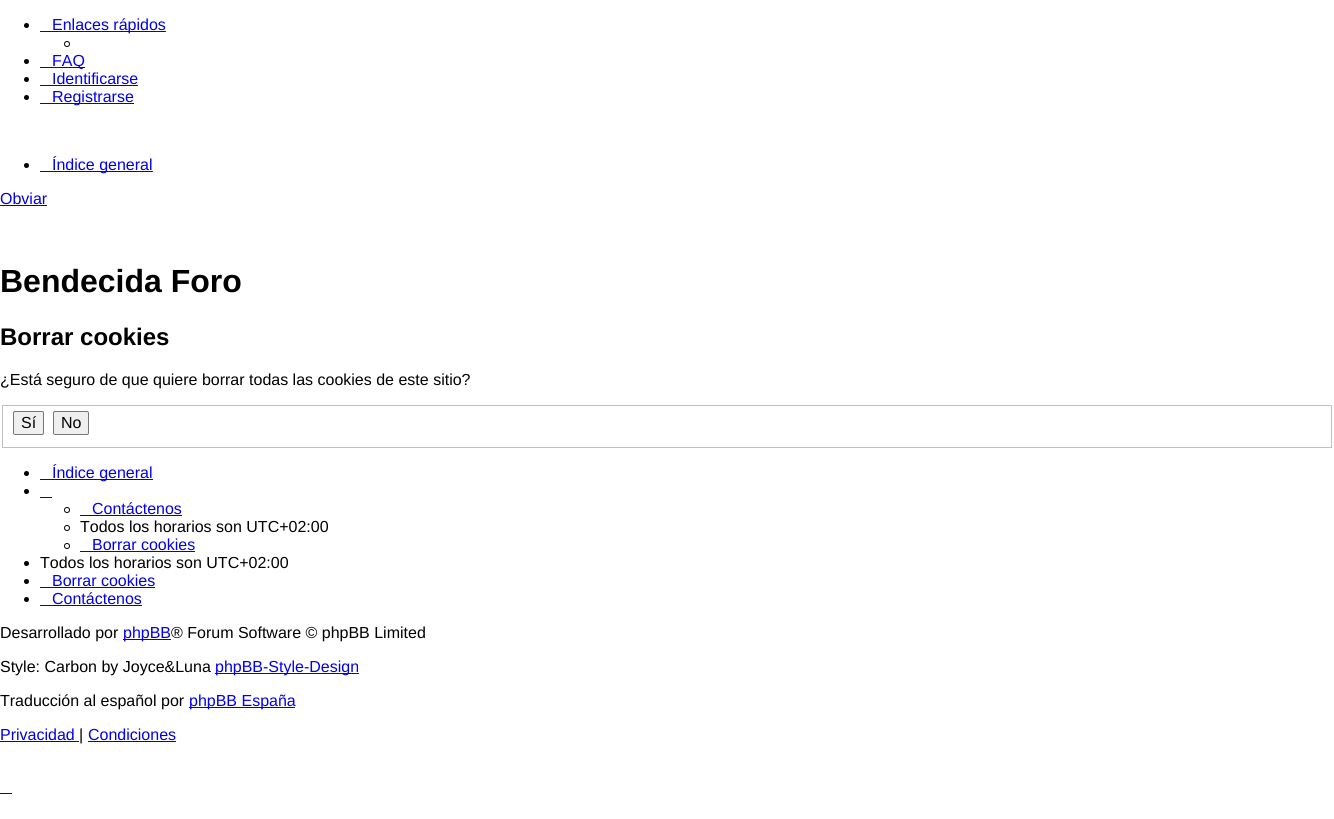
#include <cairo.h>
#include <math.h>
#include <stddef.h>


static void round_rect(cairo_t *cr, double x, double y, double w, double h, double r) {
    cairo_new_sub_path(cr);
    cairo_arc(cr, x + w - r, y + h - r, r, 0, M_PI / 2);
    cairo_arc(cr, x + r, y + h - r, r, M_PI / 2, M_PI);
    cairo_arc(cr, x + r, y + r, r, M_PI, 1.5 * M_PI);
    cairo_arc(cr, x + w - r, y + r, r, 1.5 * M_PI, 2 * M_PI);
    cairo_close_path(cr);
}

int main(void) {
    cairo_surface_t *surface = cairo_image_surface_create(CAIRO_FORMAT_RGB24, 1334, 819);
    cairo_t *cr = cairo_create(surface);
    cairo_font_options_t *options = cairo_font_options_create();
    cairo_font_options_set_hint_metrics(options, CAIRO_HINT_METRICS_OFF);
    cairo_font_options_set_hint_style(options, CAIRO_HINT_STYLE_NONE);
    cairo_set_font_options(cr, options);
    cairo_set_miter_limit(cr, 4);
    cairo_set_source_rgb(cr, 1, 1, 1);
    cairo_paint(cr);
    cairo_set_source_rgb(cr, 0, 0, 0);
    cairo_arc(cr, 26.5, 25.5, 2.5, 0, 2 * M_PI);
    cairo_fill(cr);
    cairo_set_source_rgb(cr, 0, 0, 0.933);
    cairo_rectangle(cr, 40, 31, 126, 1);
    cairo_fill(cr);
    cairo_select_font_face(cr, "Liberation Sans", CAIRO_FONT_SLANT_NORMAL, CAIRO_FONT_WEIGHT_NORMAL);
    cairo_set_font_size(cr, 16);
    cairo_move_to(cr, 52, 30);
    cairo_show_text(cr, "Enlaces rápidos");
    cairo_new_path(cr);
    cairo_arc(cr, 67, 44, 2.5, 0, 2 * M_PI);
    cairo_set_source_rgb(cr, 0, 0, 0);
    cairo_set_line_width(cr, 1);
    cairo_stroke(cr);
    cairo_arc(cr, 26.5, 61.5, 2.5, 0, 2 * M_PI);
    cairo_fill(cr);
    cairo_set_source_rgb(cr, 0, 0, 0.933);
    cairo_rectangle(cr, 40, 67, 45, 1);
    cairo_fill(cr);
    cairo_move_to(cr, 52, 66);
    cairo_show_text(cr, "FAQ");
    cairo_set_source_rgb(cr, 0, 0, 0);
    cairo_new_path(cr);
    cairo_arc(cr, 26.5, 79.5, 2.5, 0, 2 * M_PI);
    cairo_fill(cr);
    cairo_set_source_rgb(cr, 0, 0, 0.933);
    cairo_move_to(cr, 52, 84);
    cairo_show_text(cr, "Identificarse");
    cairo_rectangle(cr, 40, 85, 98, 1);
    cairo_fill(cr);
    cairo_set_source_rgb(cr, 0, 0, 0);
    cairo_arc(cr, 26.5, 97.5, 2.5, 0, 2 * M_PI);
    cairo_fill(cr);
    cairo_set_source_rgb(cr, 0, 0, 0.933);
    cairo_rectangle(cr, 40, 103, 94, 1);
    cairo_fill(cr);
    cairo_move_to(cr, 52, 102);
    cairo_show_text(cr, "Registrarse");
    cairo_set_source_rgb(cr, 0, 0, 0);
    cairo_new_path(cr);
    cairo_arc(cr, 26.5, 165.5, 2.5, 0, 2 * M_PI);
    cairo_fill(cr);
    cairo_set_source_rgb(cr, 0, 0, 0.933);
    cairo_rectangle(cr, 40, 171, 113, 1);
    cairo_fill(cr);
    cairo_move_to(cr, 52, 170);
    cairo_show_text(cr, "Índice general");
    cairo_move_to(cr, 0, 204);
    cairo_show_text(cr, "Obviar");
    cairo_rectangle(cr, 0, 205, 47, 1);
    cairo_fill(cr);
    cairo_select_font_face(cr, "Liberation Sans", CAIRO_FONT_SLANT_NORMAL, CAIRO_FONT_WEIGHT_BOLD);
    cairo_set_font_size(cr, 32);
    cairo_set_source_rgb(cr, 0, 0, 0);
    cairo_move_to(cr, 0, 292);
    cairo_show_text(cr, "Bendecida Foro");
    cairo_set_font_size(cr, 24);
    cairo_move_to(cr, 0, 345);
    cairo_show_text(cr, "Borrar cookies");
    cairo_select_font_face(cr, "Liberation Sans", CAIRO_FONT_SLANT_NORMAL, CAIRO_FONT_WEIGHT_NORMAL);
    cairo_set_font_size(cr, 16);
    cairo_move_to(cr, 0, 385);
    cairo_show_text(cr, "¿Está seguro de que quiere borrar todas las cookies de este sitio?");
    cairo_rectangle(cr, 2.5, 405.5, 1329, 42);
    cairo_set_source_rgb(cr, 0.753, 0.753, 0.753);
    cairo_stroke(cr);
    cairo_set_source_rgb(cr, 0.937, 0.937, 0.937);
    round_rect(cr, 13.5, 411.5, 30, 23, 1.5);
    cairo_fill_preserve(cr);
    cairo_set_source_rgb(cr, 0.463, 0.463, 0.463);
    cairo_stroke(cr);
    cairo_set_source_rgb(cr, 0, 0, 0);
    cairo_move_to(cr, 21, 428);
    cairo_show_text(cr, "Sí");
    cairo_set_source_rgb(cr, 0.937, 0.937, 0.937);
    round_rect(cr, 53.5, 411.5, 35, 23, 1.5);
    cairo_fill_preserve(cr);
    cairo_set_source_rgb(cr, 0.463, 0.463, 0.463);
    cairo_stroke(cr);
    cairo_set_source_rgb(cr, 0, 0, 0);
    cairo_move_to(cr, 61, 428);
    cairo_show_text(cr, "No");
    cairo_new_path(cr);
    cairo_arc(cr, 26.5, 473.5, 2.5, 0, 2 * M_PI);
    cairo_fill(cr);
    cairo_set_source_rgb(cr, 0, 0, 0.933);
    cairo_rectangle(cr, 40, 479, 113, 1);
    cairo_fill(cr);
    cairo_move_to(cr, 52, 478);
    cairo_show_text(cr, "Índice general");
    cairo_set_source_rgb(cr, 0, 0, 0);
    cairo_new_path(cr);
    cairo_arc(cr, 26.5, 491.5, 2.5, 0, 2 * M_PI);
    cairo_fill(cr);
    cairo_set_source_rgb(cr, 0, 0, 0.933);
    cairo_rectangle(cr, 40, 497, 12, 1);
    cairo_fill(cr);
    cairo_arc(cr, 67, 510, 2.5, 0, 2 * M_PI);
    cairo_set_source_rgb(cr, 0, 0, 0);
    cairo_stroke(cr);
    cairo_set_source_rgb(cr, 0, 0, 0.933);
    cairo_move_to(cr, 92, 514);
    cairo_show_text(cr, "Contáctenos");
    cairo_rectangle(cr, 80, 515, 102, 1);
    cairo_fill(cr);
    cairo_arc(cr, 67, 528, 2.5, 0, 2 * M_PI);
    cairo_set_source_rgb(cr, 0, 0, 0);
    cairo_stroke(cr);
    cairo_move_to(cr, 80, 532);
    cairo_show_text(cr, "Todos los horarios son UTC+02:00");
    cairo_new_path(cr);
    cairo_arc(cr, 67, 546, 2.5, 0, 2 * M_PI);
    cairo_stroke(cr);
    cairo_set_source_rgb(cr, 0, 0, 0.933);
    cairo_move_to(cr, 92, 550);
    cairo_show_text(cr, "Borrar cookies");
    cairo_rectangle(cr, 80, 551, 115, 1);
    cairo_fill(cr);
    cairo_set_source_rgb(cr, 0, 0, 0);
    cairo_arc(cr, 26.5, 563.5, 2.5, 0, 2 * M_PI);
    cairo_fill(cr);
    cairo_move_to(cr, 40, 568);
    cairo_show_text(cr, "Todos los horarios son UTC+02:00");
    cairo_new_path(cr);
    cairo_arc(cr, 26.5, 581.5, 2.5, 0, 2 * M_PI);
    cairo_fill(cr);
    cairo_set_source_rgb(cr, 0, 0, 0.933);
    cairo_move_to(cr, 52, 586);
    cairo_show_text(cr, "Borrar cookies");
    cairo_rectangle(cr, 40, 587, 115, 1);
    cairo_fill(cr);
    cairo_set_source_rgb(cr, 0, 0, 0);
    cairo_arc(cr, 26.5, 599.5, 2.5, 0, 2 * M_PI);
    cairo_fill(cr);
    cairo_set_source_rgb(cr, 0, 0, 0.933);
    cairo_move_to(cr, 52, 604);
    cairo_show_text(cr, "Contáctenos");
    cairo_rectangle(cr, 40, 605, 102, 1);
    cairo_fill(cr);
    cairo_set_source_rgb(cr, 0, 0, 0);
    cairo_move_to(cr, 0, 638);
    cairo_show_text(cr, "Desarrollado por");
    cairo_set_source_rgb(cr, 0, 0, 0.933);
    cairo_rectangle(cr, 123, 639, 48, 1);
    cairo_fill(cr);
    cairo_move_to(cr, 123, 638);
    cairo_show_text(cr, "phpBB");
    cairo_set_source_rgb(cr, 0, 0, 0);
    cairo_move_to(cr, 171, 638);
    cairo_show_text(cr, "® Forum Software © phpBB Limited");
    cairo_move_to(cr, 0, 672);
    cairo_show_text(cr, "Style: Carbon by Joyce&Luna");
    cairo_set_source_rgb(cr, 0, 0, 0.933);
    cairo_rectangle(cr, 215, 673, 144, 1);
    cairo_fill(cr);
    cairo_move_to(cr, 215, 672);
    cairo_show_text(cr, "phpBB-Style-Design");
    cairo_set_source_rgb(cr, 0, 0, 0);
    cairo_move_to(cr, 0, 706);
    cairo_show_text(cr, "Traducción al español por");
    cairo_set_source_rgb(cr, 0, 0, 0.933);
    cairo_rectangle(cr, 189, 707, 106, 1);
    cairo_fill(cr);
    cairo_move_to(cr, 189, 706);
    cairo_show_text(cr, "phpBB España");
    cairo_move_to(cr, 0, 740);
    cairo_show_text(cr, "Privacidad");
    cairo_rectangle(cr, 0, 741, 79, 1);
    cairo_fill(cr);
    cairo_set_source_rgb(cr, 0, 0, 0);
    cairo_move_to(cr, 79, 740);
    cairo_show_text(cr, "|");
    cairo_set_source_rgb(cr, 0, 0, 0.933);
    cairo_move_to(cr, 88, 740);
    cairo_show_text(cr, "Condiciones");
    cairo_rectangle(cr, 88, 741, 88, 1);
    cairo_fill(cr);
    cairo_rectangle(cr, 0, 793, 12, 1);
    cairo_fill(cr);
    cairo_surface_write_to_png(surface, "page.png");
    cairo_font_options_destroy(options);
    cairo_destroy(cr);
    cairo_surface_destroy(surface);
    return 0;
}
